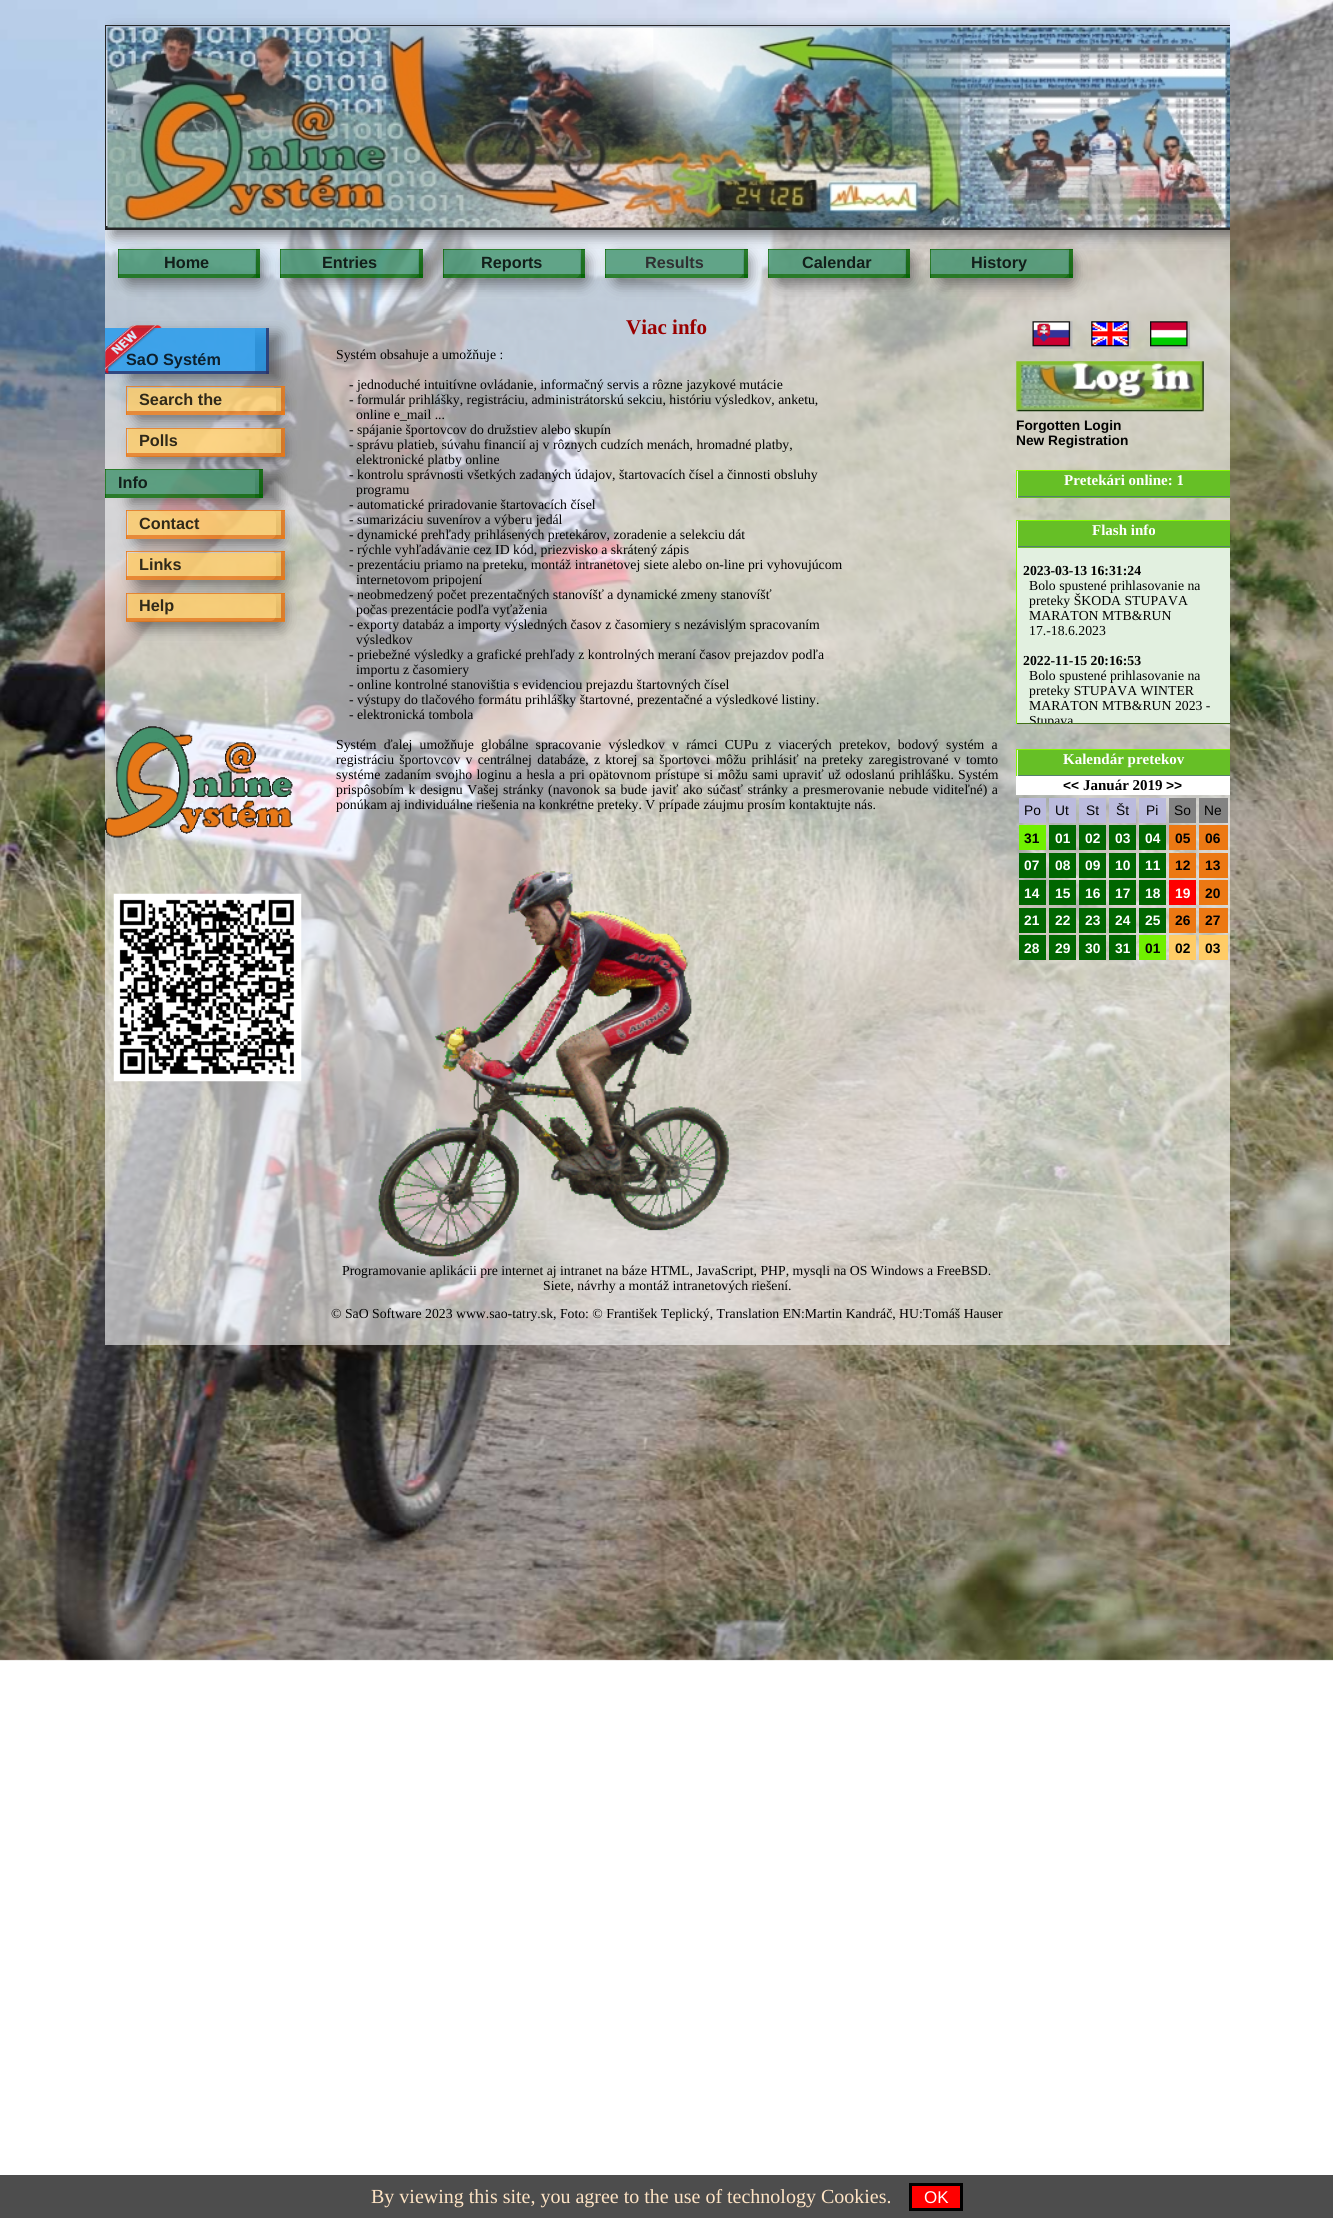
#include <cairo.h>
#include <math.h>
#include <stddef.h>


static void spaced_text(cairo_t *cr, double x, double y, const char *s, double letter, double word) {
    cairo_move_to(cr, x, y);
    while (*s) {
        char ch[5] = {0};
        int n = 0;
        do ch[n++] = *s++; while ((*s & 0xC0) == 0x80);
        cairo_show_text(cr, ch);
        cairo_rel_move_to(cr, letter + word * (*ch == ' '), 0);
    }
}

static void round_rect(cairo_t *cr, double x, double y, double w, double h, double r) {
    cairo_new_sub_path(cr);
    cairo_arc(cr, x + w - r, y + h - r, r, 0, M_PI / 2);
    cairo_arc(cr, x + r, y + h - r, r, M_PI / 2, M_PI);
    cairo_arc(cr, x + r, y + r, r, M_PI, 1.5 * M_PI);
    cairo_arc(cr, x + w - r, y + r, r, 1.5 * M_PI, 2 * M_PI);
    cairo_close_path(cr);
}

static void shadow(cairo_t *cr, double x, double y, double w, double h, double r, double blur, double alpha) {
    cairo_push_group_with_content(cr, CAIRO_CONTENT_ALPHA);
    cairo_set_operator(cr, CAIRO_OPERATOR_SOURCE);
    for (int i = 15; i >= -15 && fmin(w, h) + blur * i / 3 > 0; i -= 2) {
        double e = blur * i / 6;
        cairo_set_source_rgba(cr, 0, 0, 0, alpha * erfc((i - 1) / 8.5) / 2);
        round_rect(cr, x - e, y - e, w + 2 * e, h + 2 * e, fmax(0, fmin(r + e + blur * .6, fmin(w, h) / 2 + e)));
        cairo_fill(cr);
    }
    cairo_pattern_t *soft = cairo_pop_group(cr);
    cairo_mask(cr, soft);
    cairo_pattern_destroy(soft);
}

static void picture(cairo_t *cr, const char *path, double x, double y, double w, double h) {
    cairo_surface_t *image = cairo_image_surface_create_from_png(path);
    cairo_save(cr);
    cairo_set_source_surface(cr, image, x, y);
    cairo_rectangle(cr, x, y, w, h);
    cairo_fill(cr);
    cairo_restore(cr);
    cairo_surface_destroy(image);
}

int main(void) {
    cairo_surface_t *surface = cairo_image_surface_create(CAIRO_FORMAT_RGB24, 1333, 2218);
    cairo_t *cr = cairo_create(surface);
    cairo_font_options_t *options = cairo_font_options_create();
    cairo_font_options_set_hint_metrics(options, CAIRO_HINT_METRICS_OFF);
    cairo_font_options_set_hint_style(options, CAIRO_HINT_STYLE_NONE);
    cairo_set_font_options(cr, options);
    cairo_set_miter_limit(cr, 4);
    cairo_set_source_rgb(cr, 1, 1, 1);
    cairo_paint(cr);
    picture(cr, "img1.png", 0, 0, 1333, 1661);
    cairo_set_source_rgba(cr, 1, 1, 1, 0.6);
    cairo_rectangle(cr, 105, 50, 1125, 1295);
    cairo_fill(cr);
    cairo_save(cr);
    cairo_rectangle(cr, 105, 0, 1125, 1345);
    cairo_clip(cr);
    cairo_set_source_rgb(cr, 0.196, 0.196, 0.196);
    shadow(cr, 113, 31, 1130, 205, 0, 7, 0.59);
    cairo_restore(cr);
    cairo_set_source_rgb(cr, 0.145, 0.145, 0.145);
    cairo_rectangle(cr, 105, 25, 1125, 1);
    cairo_fill(cr);
    cairo_rectangle(cr, 105, 226, 1125, 4);
    cairo_fill(cr);
    cairo_rectangle(cr, 105, 25, 1, 205);
    cairo_fill(cr);
    picture(cr, "img2.png", 107, 27, 1123, 201);
    cairo_save(cr);
    cairo_set_fill_rule(cr, CAIRO_FILL_RULE_EVEN_ODD);
    cairo_new_path(cr);
    cairo_move_to(cr, 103, 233);
    cairo_line_to(cr, 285, 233);
    cairo_line_to(cr, 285, 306);
    cairo_line_to(cr, 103, 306);
    cairo_close_path(cr);
    cairo_move_to(cr, 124, 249);
    cairo_line_to(cr, 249, 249);
    cairo_curve_to(cr, 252.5, 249, 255, 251.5, 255, 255);
    cairo_line_to(cr, 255, 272);
    cairo_curve_to(cr, 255, 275.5, 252.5, 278, 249, 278);
    cairo_line_to(cr, 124, 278);
    cairo_curve_to(cr, 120.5, 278, 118, 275.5, 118, 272);
    cairo_line_to(cr, 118, 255);
    cairo_curve_to(cr, 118, 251.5, 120.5, 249, 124, 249);
    cairo_close_path(cr);
    cairo_clip(cr);
    cairo_set_source_rgb(cr, 0.196, 0.196, 0.196);
    shadow(cr, 125, 255, 138, 29, 6, 7, 0.59);
    cairo_restore(cr);
    cairo_set_source_rgba(cr, 0.247, 0.569, 0.424, 0.8);
    cairo_rectangle(cr, 119, 250, 137, 24);
    cairo_fill(cr);
    cairo_set_source_rgba(cr, 0, 0.4, 0, 0.8);
    cairo_rectangle(cr, 118, 249, 142, 1);
    cairo_fill(cr);
    cairo_rectangle(cr, 256, 249, 4, 29);
    cairo_fill(cr);
    cairo_rectangle(cr, 118, 274, 142, 4);
    cairo_fill(cr);
    cairo_rectangle(cr, 118, 249, 1, 29);
    cairo_fill(cr);
    cairo_select_font_face(cr, "Liberation Sans", CAIRO_FONT_SLANT_NORMAL, CAIRO_FONT_WEIGHT_BOLD);
    cairo_set_font_size(cr, 16.25);
    cairo_set_source_rgb(cr, 0.071, 0.122, 0.102);
    cairo_move_to(cr, 164, 268);
    cairo_show_text(cr, "Home");
    cairo_save(cr);
    cairo_set_fill_rule(cr, CAIRO_FILL_RULE_EVEN_ODD);
    cairo_new_path(cr);
    cairo_move_to(cr, 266, 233);
    cairo_line_to(cr, 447, 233);
    cairo_line_to(cr, 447, 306);
    cairo_line_to(cr, 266, 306);
    cairo_close_path(cr);
    cairo_move_to(cr, 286, 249);
    cairo_line_to(cr, 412, 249);
    cairo_curve_to(cr, 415.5, 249, 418, 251.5, 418, 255);
    cairo_line_to(cr, 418, 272);
    cairo_curve_to(cr, 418, 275.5, 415.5, 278, 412, 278);
    cairo_line_to(cr, 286, 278);
    cairo_curve_to(cr, 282.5, 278, 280, 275.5, 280, 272);
    cairo_line_to(cr, 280, 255);
    cairo_curve_to(cr, 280, 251.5, 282.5, 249, 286, 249);
    cairo_close_path(cr);
    cairo_clip(cr);
    cairo_set_source_rgb(cr, 0.196, 0.196, 0.196);
    shadow(cr, 288, 255, 137, 29, 6, 7, 0.59);
    cairo_restore(cr);
    cairo_set_source_rgba(cr, 0.247, 0.569, 0.424, 0.8);
    cairo_rectangle(cr, 281, 250, 138, 24);
    cairo_fill(cr);
    cairo_set_source_rgba(cr, 0, 0.4, 0, 0.8);
    cairo_rectangle(cr, 280, 249, 143, 1);
    cairo_fill(cr);
    cairo_rectangle(cr, 419, 249, 4, 29);
    cairo_fill(cr);
    cairo_rectangle(cr, 280, 274, 143, 4);
    cairo_fill(cr);
    cairo_rectangle(cr, 280, 249, 1, 29);
    cairo_fill(cr);
    cairo_set_source_rgb(cr, 0.071, 0.122, 0.102);
    cairo_move_to(cr, 322, 268);
    cairo_show_text(cr, "Entries");
    cairo_save(cr);
    cairo_set_fill_rule(cr, CAIRO_FILL_RULE_EVEN_ODD);
    cairo_new_path(cr);
    cairo_move_to(cr, 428, 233);
    cairo_line_to(cr, 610, 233);
    cairo_line_to(cr, 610, 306);
    cairo_line_to(cr, 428, 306);
    cairo_close_path(cr);
    cairo_move_to(cr, 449, 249);
    cairo_line_to(cr, 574, 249);
    cairo_curve_to(cr, 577.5, 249, 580, 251.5, 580, 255);
    cairo_line_to(cr, 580, 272);
    cairo_curve_to(cr, 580, 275.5, 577.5, 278, 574, 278);
    cairo_line_to(cr, 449, 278);
    cairo_curve_to(cr, 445.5, 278, 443, 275.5, 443, 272);
    cairo_line_to(cr, 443, 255);
    cairo_curve_to(cr, 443, 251.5, 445.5, 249, 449, 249);
    cairo_close_path(cr);
    cairo_clip(cr);
    cairo_set_source_rgb(cr, 0.196, 0.196, 0.196);
    shadow(cr, 450, 255, 138, 29, 6, 7, 0.59);
    cairo_restore(cr);
    cairo_set_source_rgba(cr, 0.247, 0.569, 0.424, 0.8);
    cairo_rectangle(cr, 444, 250, 137, 24);
    cairo_fill(cr);
    cairo_set_source_rgba(cr, 0, 0.4, 0, 0.8);
    cairo_rectangle(cr, 443, 249, 142, 1);
    cairo_fill(cr);
    cairo_rectangle(cr, 581, 249, 4, 29);
    cairo_fill(cr);
    cairo_rectangle(cr, 443, 274, 142, 4);
    cairo_fill(cr);
    cairo_rectangle(cr, 443, 249, 1, 29);
    cairo_fill(cr);
    cairo_set_source_rgb(cr, 0.071, 0.122, 0.102);
    cairo_move_to(cr, 481, 268);
    cairo_show_text(cr, "Reports");
    cairo_save(cr);
    cairo_set_fill_rule(cr, CAIRO_FILL_RULE_EVEN_ODD);
    cairo_new_path(cr);
    cairo_move_to(cr, 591, 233);
    cairo_line_to(cr, 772, 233);
    cairo_line_to(cr, 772, 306);
    cairo_line_to(cr, 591, 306);
    cairo_close_path(cr);
    cairo_move_to(cr, 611, 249);
    cairo_line_to(cr, 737, 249);
    cairo_curve_to(cr, 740.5, 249, 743, 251.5, 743, 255);
    cairo_line_to(cr, 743, 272);
    cairo_curve_to(cr, 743, 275.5, 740.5, 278, 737, 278);
    cairo_line_to(cr, 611, 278);
    cairo_curve_to(cr, 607.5, 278, 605, 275.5, 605, 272);
    cairo_line_to(cr, 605, 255);
    cairo_curve_to(cr, 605, 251.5, 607.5, 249, 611, 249);
    cairo_close_path(cr);
    cairo_clip(cr);
    cairo_set_source_rgb(cr, 0.196, 0.196, 0.196);
    shadow(cr, 613, 255, 137, 29, 6, 7, 0.59);
    cairo_restore(cr);
    cairo_set_source_rgba(cr, 0.247, 0.569, 0.424, 0.8);
    cairo_rectangle(cr, 606, 250, 138, 24);
    cairo_fill(cr);
    cairo_set_source_rgba(cr, 0, 0.4, 0, 0.8);
    cairo_rectangle(cr, 605, 249, 143, 1);
    cairo_fill(cr);
    cairo_rectangle(cr, 744, 249, 4, 29);
    cairo_fill(cr);
    cairo_rectangle(cr, 605, 274, 143, 4);
    cairo_fill(cr);
    cairo_rectangle(cr, 605, 249, 1, 29);
    cairo_fill(cr);
    cairo_set_source_rgb(cr, 0.184, 0.188, 0.196);
    cairo_move_to(cr, 645, 268);
    cairo_show_text(cr, "Results");
    cairo_save(cr);
    cairo_set_fill_rule(cr, CAIRO_FILL_RULE_EVEN_ODD);
    cairo_new_path(cr);
    cairo_move_to(cr, 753, 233);
    cairo_line_to(cr, 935, 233);
    cairo_line_to(cr, 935, 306);
    cairo_line_to(cr, 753, 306);
    cairo_close_path(cr);
    cairo_move_to(cr, 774, 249);
    cairo_line_to(cr, 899, 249);
    cairo_curve_to(cr, 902.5, 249, 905, 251.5, 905, 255);
    cairo_line_to(cr, 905, 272);
    cairo_curve_to(cr, 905, 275.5, 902.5, 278, 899, 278);
    cairo_line_to(cr, 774, 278);
    cairo_curve_to(cr, 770.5, 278, 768, 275.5, 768, 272);
    cairo_line_to(cr, 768, 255);
    cairo_curve_to(cr, 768, 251.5, 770.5, 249, 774, 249);
    cairo_close_path(cr);
    cairo_clip(cr);
    cairo_set_source_rgb(cr, 0.196, 0.196, 0.196);
    shadow(cr, 775, 255, 138, 29, 6, 7, 0.59);
    cairo_restore(cr);
    cairo_set_source_rgba(cr, 0.247, 0.569, 0.424, 0.8);
    cairo_rectangle(cr, 769, 250, 137, 24);
    cairo_fill(cr);
    cairo_set_source_rgba(cr, 0, 0.4, 0, 0.8);
    cairo_rectangle(cr, 768, 249, 142, 1);
    cairo_fill(cr);
    cairo_rectangle(cr, 906, 249, 4, 29);
    cairo_fill(cr);
    cairo_rectangle(cr, 768, 274, 142, 4);
    cairo_fill(cr);
    cairo_rectangle(cr, 768, 249, 1, 29);
    cairo_fill(cr);
    cairo_set_source_rgb(cr, 0.071, 0.122, 0.102);
    cairo_move_to(cr, 802, 268);
    cairo_show_text(cr, "Calendar");
    cairo_save(cr);
    cairo_set_fill_rule(cr, CAIRO_FILL_RULE_EVEN_ODD);
    cairo_new_path(cr);
    cairo_move_to(cr, 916, 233);
    cairo_line_to(cr, 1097, 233);
    cairo_line_to(cr, 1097, 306);
    cairo_line_to(cr, 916, 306);
    cairo_close_path(cr);
    cairo_move_to(cr, 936, 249);
    cairo_line_to(cr, 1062, 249);
    cairo_curve_to(cr, 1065.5, 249, 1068, 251.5, 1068, 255);
    cairo_line_to(cr, 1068, 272);
    cairo_curve_to(cr, 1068, 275.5, 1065.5, 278, 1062, 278);
    cairo_line_to(cr, 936, 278);
    cairo_curve_to(cr, 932.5, 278, 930, 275.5, 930, 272);
    cairo_line_to(cr, 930, 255);
    cairo_curve_to(cr, 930, 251.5, 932.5, 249, 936, 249);
    cairo_close_path(cr);
    cairo_clip(cr);
    cairo_set_source_rgb(cr, 0.196, 0.196, 0.196);
    shadow(cr, 938, 255, 137, 29, 6, 7, 0.59);
    cairo_restore(cr);
    cairo_set_source_rgba(cr, 0.247, 0.569, 0.424, 0.8);
    cairo_rectangle(cr, 931, 250, 138, 24);
    cairo_fill(cr);
    cairo_set_source_rgba(cr, 0, 0.4, 0, 0.8);
    cairo_rectangle(cr, 930, 249, 143, 1);
    cairo_fill(cr);
    cairo_rectangle(cr, 1069, 249, 4, 29);
    cairo_fill(cr);
    cairo_rectangle(cr, 930, 274, 143, 4);
    cairo_fill(cr);
    cairo_rectangle(cr, 930, 249, 1, 29);
    cairo_fill(cr);
    cairo_set_source_rgb(cr, 0.071, 0.122, 0.102);
    cairo_move_to(cr, 971, 268);
    cairo_show_text(cr, "History");
    cairo_save(cr);
    cairo_set_fill_rule(cr, CAIRO_FILL_RULE_EVEN_ODD);
    cairo_new_path(cr);
    cairo_move_to(cr, 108, 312);
    cairo_line_to(cr, 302, 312);
    cairo_line_to(cr, 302, 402);
    cairo_line_to(cr, 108, 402);
    cairo_close_path(cr);
    cairo_move_to(cr, 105, 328);
    cairo_line_to(cr, 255, 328);
    cairo_line_to(cr, 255, 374);
    cairo_line_to(cr, 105, 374);
    cairo_close_path(cr);
    cairo_clip(cr);
    cairo_set_source_rgb(cr, 0.196, 0.196, 0.196);
    shadow(cr, 130, 334, 150, 46, 0, 7, 0.59);
    cairo_restore(cr);
    cairo_save(cr);
    cairo_set_fill_rule(cr, CAIRO_FILL_RULE_EVEN_ODD);
    cairo_new_path(cr);
    cairo_move_to(cr, 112, 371);
    cairo_line_to(cr, 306, 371);
    cairo_line_to(cr, 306, 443);
    cairo_line_to(cr, 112, 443);
    cairo_close_path(cr);
    cairo_move_to(cr, 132, 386);
    cairo_line_to(cr, 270, 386);
    cairo_curve_to(cr, 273.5, 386, 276, 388.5, 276, 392);
    cairo_line_to(cr, 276, 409);
    cairo_curve_to(cr, 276, 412.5, 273.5, 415, 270, 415);
    cairo_line_to(cr, 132, 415);
    cairo_curve_to(cr, 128.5, 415, 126, 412.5, 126, 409);
    cairo_line_to(cr, 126, 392);
    cairo_curve_to(cr, 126, 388.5, 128.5, 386, 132, 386);
    cairo_close_path(cr);
    cairo_clip(cr);
    cairo_set_source_rgb(cr, 0.196, 0.196, 0.196);
    shadow(cr, 134, 393, 150, 28, 6, 7, 0.59);
    cairo_restore(cr);
    cairo_set_source_rgba(cr, 0.118, 0.6, 0.933, 0.8);
    cairo_rectangle(cr, 105, 328, 164, 46);
    cairo_fill(cr);
    cairo_set_source_rgba(cr, 0.176, 0.192, 0.404, 0.8);
    cairo_rectangle(cr, 266, 328, 3, 46);
    cairo_fill(cr);
    cairo_rectangle(cr, 105, 371, 164, 3);
    cairo_fill(cr);
    cairo_set_source_rgb(cr, 0.047, 0.125, 0.18);
    cairo_move_to(cr, 126, 365);
    cairo_show_text(cr, "SaO Systém");
    picture(cr, "img3.png", 105, 325, 57, 49);
    cairo_set_source_rgba(cr, 1, 0.8, 0.4, 0.8);
    cairo_rectangle(cr, 128, 388, 153, 23);
    cairo_fill(cr);
    cairo_set_source_rgba(cr, 0.922, 0.471, 0.078, 0.8);
    cairo_rectangle(cr, 126, 386, 159, 1);
    cairo_fill(cr);
    cairo_save(cr);
    cairo_set_fill_rule(cr, CAIRO_FILL_RULE_EVEN_ODD);
    cairo_new_path(cr);
    cairo_move_to(cr, 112, 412);
    cairo_line_to(cr, 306, 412);
    cairo_line_to(cr, 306, 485);
    cairo_line_to(cr, 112, 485);
    cairo_close_path(cr);
    cairo_move_to(cr, 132, 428);
    cairo_line_to(cr, 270, 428);
    cairo_curve_to(cr, 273.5, 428, 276, 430.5, 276, 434);
    cairo_line_to(cr, 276, 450);
    cairo_curve_to(cr, 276, 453.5, 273.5, 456, 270, 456);
    cairo_line_to(cr, 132, 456);
    cairo_curve_to(cr, 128.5, 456, 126, 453.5, 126, 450);
    cairo_line_to(cr, 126, 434);
    cairo_curve_to(cr, 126, 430.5, 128.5, 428, 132, 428);
    cairo_close_path(cr);
    cairo_clip(cr);
    cairo_set_source_rgb(cr, 0.196, 0.196, 0.196);
    shadow(cr, 134, 434, 150, 29, 6, 7, 0.59);
    cairo_restore(cr);
    cairo_rectangle(cr, 281, 386, 4, 29);
    cairo_fill(cr);
    cairo_rectangle(cr, 126, 411, 159, 4);
    cairo_fill(cr);
    cairo_rectangle(cr, 126, 386, 1, 29);
    cairo_fill(cr);
    cairo_set_source_rgb(cr, 0.188, 0.161, 0.098);
    cairo_move_to(cr, 139, 405);
    cairo_show_text(cr, "Search the");
    cairo_set_source_rgba(cr, 1, 0.8, 0.4, 0.8);
    cairo_rectangle(cr, 128, 429, 153, 24);
    cairo_fill(cr);
    cairo_set_source_rgba(cr, 0.922, 0.471, 0.078, 0.8);
    cairo_rectangle(cr, 126, 428, 159, 1);
    cairo_fill(cr);
    cairo_save(cr);
    cairo_set_fill_rule(cr, CAIRO_FILL_RULE_EVEN_ODD);
    cairo_new_path(cr);
    cairo_move_to(cr, 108, 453);
    cairo_line_to(cr, 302, 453);
    cairo_line_to(cr, 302, 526);
    cairo_line_to(cr, 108, 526);
    cairo_close_path(cr);
    cairo_move_to(cr, 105, 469);
    cairo_line_to(cr, 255, 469);
    cairo_line_to(cr, 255, 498);
    cairo_line_to(cr, 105, 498);
    cairo_close_path(cr);
    cairo_clip(cr);
    cairo_set_source_rgb(cr, 0.196, 0.196, 0.196);
    shadow(cr, 130, 475, 150, 29, 0, 7, 0.59);
    cairo_restore(cr);
    cairo_rectangle(cr, 281, 428, 4, 28);
    cairo_fill(cr);
    cairo_rectangle(cr, 126, 453, 159, 4);
    cairo_fill(cr);
    cairo_rectangle(cr, 126, 428, 1, 28);
    cairo_fill(cr);
    cairo_set_source_rgb(cr, 0.188, 0.161, 0.098);
    cairo_move_to(cr, 139, 446);
    cairo_show_text(cr, "Polls");
    cairo_set_source_rgba(cr, 0.247, 0.569, 0.424, 0.8);
    cairo_rectangle(cr, 106, 470, 153, 24);
    cairo_fill(cr);
    cairo_set_source_rgba(cr, 0, 0.4, 0, 0.8);
    cairo_rectangle(cr, 105, 469, 158, 1);
    cairo_fill(cr);
    cairo_save(cr);
    cairo_set_fill_rule(cr, CAIRO_FILL_RULE_EVEN_ODD);
    cairo_new_path(cr);
    cairo_move_to(cr, 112, 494);
    cairo_line_to(cr, 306, 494);
    cairo_line_to(cr, 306, 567);
    cairo_line_to(cr, 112, 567);
    cairo_close_path(cr);
    cairo_move_to(cr, 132, 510);
    cairo_line_to(cr, 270, 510);
    cairo_curve_to(cr, 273.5, 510, 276, 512.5, 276, 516);
    cairo_line_to(cr, 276, 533);
    cairo_curve_to(cr, 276, 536.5, 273.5, 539, 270, 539);
    cairo_line_to(cr, 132, 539);
    cairo_curve_to(cr, 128.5, 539, 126, 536.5, 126, 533);
    cairo_line_to(cr, 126, 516);
    cairo_curve_to(cr, 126, 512.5, 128.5, 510, 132, 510);
    cairo_close_path(cr);
    cairo_clip(cr);
    cairo_set_source_rgb(cr, 0.196, 0.196, 0.196);
    shadow(cr, 134, 516, 150, 29, 6, 7, 0.59);
    cairo_restore(cr);
    cairo_rectangle(cr, 259, 469, 4, 29);
    cairo_fill(cr);
    cairo_rectangle(cr, 105, 494, 158, 4);
    cairo_fill(cr);
    cairo_rectangle(cr, 105, 469, 1, 29);
    cairo_fill(cr);
    cairo_set_source_rgb(cr, 0.071, 0.122, 0.102);
    cairo_move_to(cr, 118, 488);
    cairo_show_text(cr, "Info");
    cairo_set_source_rgba(cr, 1, 0.8, 0.4, 0.8);
    cairo_rectangle(cr, 128, 511, 153, 24);
    cairo_fill(cr);
    cairo_set_source_rgba(cr, 0.922, 0.471, 0.078, 0.8);
    cairo_rectangle(cr, 126, 510, 159, 1);
    cairo_fill(cr);
    cairo_save(cr);
    cairo_set_fill_rule(cr, CAIRO_FILL_RULE_EVEN_ODD);
    cairo_new_path(cr);
    cairo_move_to(cr, 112, 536);
    cairo_line_to(cr, 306, 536);
    cairo_line_to(cr, 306, 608);
    cairo_line_to(cr, 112, 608);
    cairo_close_path(cr);
    cairo_move_to(cr, 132, 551);
    cairo_line_to(cr, 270, 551);
    cairo_curve_to(cr, 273.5, 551, 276, 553.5, 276, 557);
    cairo_line_to(cr, 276, 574);
    cairo_curve_to(cr, 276, 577.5, 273.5, 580, 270, 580);
    cairo_line_to(cr, 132, 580);
    cairo_curve_to(cr, 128.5, 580, 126, 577.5, 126, 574);
    cairo_line_to(cr, 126, 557);
    cairo_curve_to(cr, 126, 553.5, 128.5, 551, 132, 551);
    cairo_close_path(cr);
    cairo_clip(cr);
    cairo_set_source_rgb(cr, 0.196, 0.196, 0.196);
    shadow(cr, 134, 558, 150, 28, 6, 7, 0.59);
    cairo_restore(cr);
    cairo_rectangle(cr, 281, 510, 4, 29);
    cairo_fill(cr);
    cairo_rectangle(cr, 126, 535, 159, 4);
    cairo_fill(cr);
    cairo_rectangle(cr, 126, 510, 1, 29);
    cairo_fill(cr);
    cairo_set_source_rgb(cr, 0.188, 0.161, 0.098);
    cairo_move_to(cr, 139, 529);
    cairo_show_text(cr, "Contact");
    cairo_set_source_rgba(cr, 1, 0.8, 0.4, 0.8);
    cairo_rectangle(cr, 128, 553, 153, 23);
    cairo_fill(cr);
    cairo_set_source_rgba(cr, 0.922, 0.471, 0.078, 0.8);
    cairo_rectangle(cr, 126, 551, 159, 1);
    cairo_fill(cr);
    cairo_save(cr);
    cairo_set_fill_rule(cr, CAIRO_FILL_RULE_EVEN_ODD);
    cairo_new_path(cr);
    cairo_move_to(cr, 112, 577);
    cairo_line_to(cr, 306, 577);
    cairo_line_to(cr, 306, 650);
    cairo_line_to(cr, 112, 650);
    cairo_close_path(cr);
    cairo_move_to(cr, 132, 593);
    cairo_line_to(cr, 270, 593);
    cairo_curve_to(cr, 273.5, 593, 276, 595.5, 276, 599);
    cairo_line_to(cr, 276, 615);
    cairo_curve_to(cr, 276, 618.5, 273.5, 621, 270, 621);
    cairo_line_to(cr, 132, 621);
    cairo_curve_to(cr, 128.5, 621, 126, 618.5, 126, 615);
    cairo_line_to(cr, 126, 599);
    cairo_curve_to(cr, 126, 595.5, 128.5, 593, 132, 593);
    cairo_close_path(cr);
    cairo_clip(cr);
    cairo_set_source_rgb(cr, 0.196, 0.196, 0.196);
    shadow(cr, 134, 599, 150, 29, 6, 7, 0.59);
    cairo_restore(cr);
    cairo_rectangle(cr, 281, 551, 4, 29);
    cairo_fill(cr);
    cairo_rectangle(cr, 126, 576, 159, 4);
    cairo_fill(cr);
    cairo_rectangle(cr, 126, 551, 1, 29);
    cairo_fill(cr);
    cairo_set_source_rgb(cr, 0.188, 0.161, 0.098);
    cairo_move_to(cr, 139, 570);
    cairo_show_text(cr, "Links");
    cairo_set_source_rgba(cr, 1, 0.8, 0.4, 0.8);
    cairo_rectangle(cr, 128, 594, 153, 24);
    cairo_fill(cr);
    cairo_set_source_rgba(cr, 0.922, 0.471, 0.078, 0.8);
    cairo_rectangle(cr, 126, 593, 159, 1);
    cairo_fill(cr);
    cairo_rectangle(cr, 281, 593, 4, 28);
    cairo_fill(cr);
    cairo_rectangle(cr, 126, 618, 159, 4);
    cairo_fill(cr);
    cairo_rectangle(cr, 126, 593, 1, 28);
    cairo_fill(cr);
    cairo_set_source_rgb(cr, 0.188, 0.161, 0.098);
    cairo_move_to(cr, 139, 611);
    cairo_show_text(cr, "Help");
    picture(cr, "img4.png", 105, 726, 188, 112);
    picture(cr, "img5.png", 113, 893, 189, 189);
    cairo_select_font_face(cr, "Liberation Serif", CAIRO_FONT_SLANT_NORMAL, CAIRO_FONT_WEIGHT_BOLD);
    cairo_set_font_size(cr, 21);
    cairo_set_source_rgb(cr, 0.6, 0, 0);
    cairo_move_to(cr, 626, 334);
    cairo_show_text(cr, "Viac info");
    cairo_select_font_face(cr, "Liberation Serif", CAIRO_FONT_SLANT_NORMAL, CAIRO_FONT_WEIGHT_NORMAL);
    cairo_set_font_size(cr, 13.75);
    cairo_set_source_rgb(cr, 0, 0, 0);
    cairo_move_to(cr, 336, 359);
    cairo_show_text(cr, "Systém obsahuje a umožňuje :");
    cairo_move_to(cr, 349, 389);
    cairo_show_text(cr, "- jednoduché intuitívne ovládanie, informačný servis a rôzne jazykové mutácie");
    cairo_move_to(cr, 349, 404);
    cairo_show_text(cr, "- formulár prihlášky, registráciu, administrátorskú sekciu, históriu výsledkov, anketu,");
    cairo_move_to(cr, 356, 419);
    cairo_show_text(cr, "online e_mail ...");
    cairo_move_to(cr, 349, 434);
    cairo_show_text(cr, "- spájanie športovcov do družstiev alebo skupín");
    cairo_move_to(cr, 349, 449);
    cairo_show_text(cr, "- správu platieb, súvahu financií aj v rôznych cudzích menách, hromadné platby,");
    cairo_move_to(cr, 356, 464);
    cairo_show_text(cr, "elektronické platby online");
    cairo_move_to(cr, 349, 479);
    cairo_show_text(cr, "- kontrolu správnosti všetkých zadaných údajov, štartovacích čísel a činnosti obsluhy");
    cairo_move_to(cr, 356, 494);
    cairo_show_text(cr, "programu");
    cairo_move_to(cr, 349, 509);
    cairo_show_text(cr, "- automatické priradovanie štartovacích čísel");
    cairo_move_to(cr, 349, 524);
    cairo_show_text(cr, "- sumarizáciu suvenírov a výberu jedál");
    cairo_move_to(cr, 349, 539);
    cairo_show_text(cr, "- dynamické prehľady prihlásených pretekárov, zoradenie a selekciu dát");
    cairo_move_to(cr, 349, 554);
    cairo_show_text(cr, "- rýchle vyhľadávanie cez ID kód, priezvisko a skrátený zápis");
    cairo_move_to(cr, 349, 569);
    cairo_show_text(cr, "- prezentáciu priamo na preteku, montáž intranetovej siete alebo on-line pri vyhovujúcom");
    cairo_move_to(cr, 356, 584);
    cairo_show_text(cr, "internetovom pripojení");
    cairo_move_to(cr, 349, 599);
    cairo_show_text(cr, "- neobmedzený počet prezentačných stanovíšť a dynamické zmeny stanovíšť");
    cairo_move_to(cr, 356, 614);
    cairo_show_text(cr, "počas prezentácie podľa vyťaženia");
    cairo_move_to(cr, 349, 629);
    cairo_show_text(cr, "- exporty databáz a importy výsledných časov z časomiery s nezávislým spracovaním");
    cairo_move_to(cr, 356, 644);
    cairo_show_text(cr, "výsledkov");
    cairo_move_to(cr, 349, 659);
    cairo_show_text(cr, "- priebežné výsledky a grafické prehľady z kontrolných meraní časov prejazdov podľa");
    cairo_move_to(cr, 356, 674);
    cairo_show_text(cr, "importu z časomiery");
    cairo_move_to(cr, 349, 689);
    cairo_show_text(cr, "- online kontrolné stanovištia s evidenciou prejazdu štartovných čísel");
    cairo_move_to(cr, 349, 704);
    cairo_show_text(cr, "- výstupy do tlačového formátu prihlášky štartovné, prezentačné a výsledkové listiny.");
    cairo_move_to(cr, 349, 719);
    cairo_show_text(cr, "- elektronická tombola");
    spaced_text(cr, 336, 749, "Systém ďalej umožňuje globálne spracovanie výsledkov v rámci CUPu", 0, 3.75);
    spaced_text(cr, 765, 749, "z viacerých pretekov, bodový systém a", 0, 3.75);
    spaced_text(cr, 336, 764, "registráciu športovcov v centrálnej databáze, z ktorej sa športovci môžu prihlásiť na preteky zaregistrované v tomto", 0, 1.8);
    spaced_text(cr, 336, 779, "systéme zadaním svojho loginu a hesla a pri opätovnom prístupe si môžu sami upraviť už odoslanú prihlášku.", 0, 0.9);
    cairo_move_to(cr, 958, 779);
    cairo_show_text(cr, "Systém");
    spaced_text(cr, 336, 794, "prispôsobím k designu Vašej stránky (navonok sa bude javiť ako súčasť stránky a presmerovanie nebude viditeľné) a", 0, 1.1);
    cairo_move_to(cr, 336, 809);
    cairo_show_text(cr, "ponúkam aj individuálne riešenia na konkrétne preteky. V prípade záujmu prosím kontaktujte nás.");
    picture(cr, "img6.png", 378, 871, 351, 386);
    cairo_move_to(cr, 342, 1275);
    cairo_show_text(cr, "Programovanie aplikácii pre internet aj intranet na báze HTML, JavaScript, PHP, mysqli na OS Windows a FreeBSD.");
    cairo_move_to(cr, 543, 1290);
    cairo_show_text(cr, "Siete, návrhy a montáž intranetových riešení.");
    picture(cr, "img7.png", 1032, 321, 41, 28);
    picture(cr, "img8.png", 1091, 321, 41, 28);
    picture(cr, "img9.png", 1150, 321, 40, 28);
    picture(cr, "img10.png", 1016, 361, 188, 51);
    cairo_select_font_face(cr, "Liberation Sans", CAIRO_FONT_SLANT_NORMAL, CAIRO_FONT_WEIGHT_BOLD);
    cairo_move_to(cr, 1016, 430);
    cairo_show_text(cr, "Forgotten Login");
    cairo_move_to(cr, 1016, 445);
    cairo_show_text(cr, "New Registration");
    cairo_set_source_rgb(cr, 0.886, 0.941, 0.878);
    cairo_rectangle(cr, 1017, 471, 1, 27);
    cairo_fill(cr);
    cairo_set_source_rgb(cr, 0.522, 0.969, 0);
    cairo_rectangle(cr, 1016, 470, 214, 1);
    cairo_fill(cr);
    cairo_rectangle(cr, 1016, 470, 1, 28);
    cairo_fill(cr);
    cairo_set_source_rgb(cr, 0.4, 0.749, 0.149);
    cairo_rectangle(cr, 1018, 471, 212, 27);
    cairo_fill(cr);
    cairo_set_source_rgb(cr, 0.329, 0.502, 0.424);
    cairo_rectangle(cr, 1018, 496, 212, 1);
    cairo_fill(cr);
    cairo_select_font_face(cr, "Liberation Serif", CAIRO_FONT_SLANT_NORMAL, CAIRO_FONT_WEIGHT_BOLD);
    cairo_set_font_size(cr, 15);
    cairo_set_source_rgb(cr, 1, 1, 1);
    cairo_move_to(cr, 1064, 485);
    cairo_show_text(cr, "Pretekári online: 1");
    cairo_set_source_rgb(cr, 0.886, 0.941, 0.878);
    cairo_rectangle(cr, 1017, 521, 1, 27);
    cairo_fill(cr);
    cairo_set_source_rgb(cr, 0.522, 0.969, 0);
    cairo_rectangle(cr, 1016, 520, 214, 1);
    cairo_fill(cr);
    cairo_rectangle(cr, 1016, 520, 1, 28);
    cairo_fill(cr);
    cairo_set_source_rgb(cr, 0.4, 0.749, 0.149);
    cairo_rectangle(cr, 1018, 521, 212, 27);
    cairo_fill(cr);
    cairo_set_source_rgb(cr, 0.329, 0.502, 0.424);
    cairo_rectangle(cr, 1018, 546, 212, 1);
    cairo_fill(cr);
    cairo_set_source_rgb(cr, 1, 1, 1);
    cairo_move_to(cr, 1092, 535);
    cairo_show_text(cr, "Flash info");
    cairo_set_source_rgb(cr, 0.886, 0.941, 0.878);
    cairo_rectangle(cr, 1017, 548, 213, 175);
    cairo_fill(cr);
    cairo_set_source_rgb(cr, 0.251, 0.431, 0.086);
    cairo_rectangle(cr, 1016, 723, 214, 1);
    cairo_fill(cr);
    cairo_set_source_rgb(cr, 0.522, 0.969, 0);
    cairo_rectangle(cr, 1016, 548, 1, 176);
    cairo_fill(cr);
    cairo_set_font_size(cr, 13.75);
    cairo_set_source_rgb(cr, 0, 0, 0);
    cairo_move_to(cr, 1023, 575);
    cairo_show_text(cr, "2023-03-13 16:31:24");
    cairo_select_font_face(cr, "Liberation Serif", CAIRO_FONT_SLANT_NORMAL, CAIRO_FONT_WEIGHT_NORMAL);
    cairo_move_to(cr, 1029, 590);
    cairo_show_text(cr, "Bolo spustené prihlasovanie na");
    cairo_move_to(cr, 1029, 605);
    cairo_show_text(cr, "preteky ŠKODA STUPAVA");
    cairo_move_to(cr, 1029, 620);
    cairo_show_text(cr, "MARATON MTB&RUN");
    cairo_move_to(cr, 1029, 635);
    cairo_show_text(cr, "17.-18.6.2023");
    cairo_select_font_face(cr, "Liberation Serif", CAIRO_FONT_SLANT_NORMAL, CAIRO_FONT_WEIGHT_BOLD);
    cairo_move_to(cr, 1023, 665);
    cairo_show_text(cr, "2022-11-15 20:16:53");
    cairo_select_font_face(cr, "Liberation Serif", CAIRO_FONT_SLANT_NORMAL, CAIRO_FONT_WEIGHT_NORMAL);
    cairo_move_to(cr, 1029, 680);
    cairo_show_text(cr, "Bolo spustené prihlasovanie na");
    cairo_move_to(cr, 1029, 695);
    cairo_show_text(cr, "preteky STUPAVA WINTER");
    cairo_move_to(cr, 1029, 710);
    cairo_show_text(cr, "MARATON MTB&RUN 2023 -");
    cairo_save(cr);
    cairo_rectangle(cr, 1018, 548, 212, 175);
    cairo_clip(cr);
    cairo_move_to(cr, 1029, 725);
    cairo_show_text(cr, "Stupava");
    cairo_restore(cr);
    cairo_set_source_rgb(cr, 0.886, 0.941, 0.878);
    cairo_rectangle(cr, 1017, 750, 1, 26);
    cairo_fill(cr);
    cairo_set_source_rgb(cr, 0.522, 0.969, 0);
    cairo_rectangle(cr, 1016, 749, 214, 1);
    cairo_fill(cr);
    cairo_rectangle(cr, 1016, 749, 1, 27);
    cairo_fill(cr);
    cairo_set_source_rgb(cr, 0.4, 0.749, 0.149);
    cairo_rectangle(cr, 1018, 750, 212, 25);
    cairo_fill(cr);
    cairo_set_source_rgb(cr, 0.329, 0.502, 0.424);
    cairo_rectangle(cr, 1018, 775, 212, 1);
    cairo_fill(cr);
    cairo_select_font_face(cr, "Liberation Serif", CAIRO_FONT_SLANT_NORMAL, CAIRO_FONT_WEIGHT_BOLD);
    cairo_set_font_size(cr, 15);
    cairo_set_source_rgb(cr, 1, 1, 1);
    cairo_move_to(cr, 1063, 764);
    cairo_show_text(cr, "Kalendár pretekov");
    cairo_rectangle(cr, 1016, 776, 214, 19);
    cairo_fill(cr);
    cairo_select_font_face(cr, "Liberation Sans", CAIRO_FONT_SLANT_NORMAL, CAIRO_FONT_WEIGHT_BOLD);
    cairo_set_font_size(cr, 13.75);
    cairo_set_source_rgb(cr, 0, 0, 0);
    cairo_move_to(cr, 1063, 790);
    cairo_show_text(cr, "<<");
    cairo_select_font_face(cr, "Liberation Serif", CAIRO_FONT_SLANT_NORMAL, CAIRO_FONT_WEIGHT_BOLD);
    cairo_set_font_size(cr, 15);
    cairo_move_to(cr, 1083, 790);
    cairo_show_text(cr, "Január 2019");
    cairo_select_font_face(cr, "Liberation Sans", CAIRO_FONT_SLANT_NORMAL, CAIRO_FONT_WEIGHT_BOLD);
    cairo_set_font_size(cr, 13.75);
    cairo_move_to(cr, 1166, 790);
    cairo_show_text(cr, ">>");
    cairo_set_source_rgb(cr, 0.733, 0.733, 0.867);
    cairo_rectangle(cr, 1019, 798, 27, 25);
    cairo_fill(cr);
    cairo_select_font_face(cr, "Liberation Sans", CAIRO_FONT_SLANT_NORMAL, CAIRO_FONT_WEIGHT_NORMAL);
    cairo_set_source_rgb(cr, 0, 0, 0);
    cairo_move_to(cr, 1024, 815);
    cairo_show_text(cr, "Po");
    cairo_set_source_rgb(cr, 0.733, 0.733, 0.867);
    cairo_rectangle(cr, 1049, 798, 27, 25);
    cairo_fill(cr);
    cairo_set_source_rgb(cr, 0, 0, 0);
    cairo_move_to(cr, 1055, 815);
    cairo_show_text(cr, "Ut");
    cairo_set_source_rgb(cr, 0.733, 0.733, 0.867);
    cairo_rectangle(cr, 1079, 798, 27, 25);
    cairo_fill(cr);
    cairo_set_source_rgb(cr, 0, 0, 0);
    cairo_move_to(cr, 1086, 815);
    cairo_show_text(cr, "St");
    cairo_set_source_rgb(cr, 0.733, 0.733, 0.867);
    cairo_rectangle(cr, 1109, 798, 27, 25);
    cairo_fill(cr);
    cairo_set_source_rgb(cr, 0, 0, 0);
    cairo_move_to(cr, 1116, 815);
    cairo_show_text(cr, "Št");
    cairo_set_source_rgb(cr, 0.733, 0.733, 0.867);
    cairo_rectangle(cr, 1139, 798, 27, 25);
    cairo_fill(cr);
    cairo_set_source_rgb(cr, 0, 0, 0);
    cairo_move_to(cr, 1146, 815);
    cairo_show_text(cr, "Pi");
    cairo_set_source_rgb(cr, 0.514, 0.514, 0.514);
    cairo_rectangle(cr, 1169, 798, 27, 25);
    cairo_fill(cr);
    cairo_set_source_rgb(cr, 0, 0, 0);
    cairo_move_to(cr, 1174, 815);
    cairo_show_text(cr, "So");
    cairo_set_source_rgb(cr, 0.514, 0.514, 0.514);
    cairo_rectangle(cr, 1199, 798, 29, 25);
    cairo_fill(cr);
    cairo_set_source_rgb(cr, 0, 0, 0);
    cairo_move_to(cr, 1204, 815);
    cairo_show_text(cr, "Ne");
    cairo_set_source_rgb(cr, 0.439, 0.941, 0);
    cairo_rectangle(cr, 1019, 825, 27, 25);
    cairo_fill(cr);
    cairo_select_font_face(cr, "Liberation Sans", CAIRO_FONT_SLANT_NORMAL, CAIRO_FONT_WEIGHT_BOLD);
    cairo_set_source_rgb(cr, 0, 0, 0);
    cairo_move_to(cr, 1024, 843);
    cairo_show_text(cr, "31");
    cairo_set_source_rgb(cr, 0, 0.4, 0);
    cairo_rectangle(cr, 1049, 825, 27, 25);
    cairo_fill(cr);
    cairo_set_source_rgb(cr, 1, 1, 1);
    cairo_move_to(cr, 1055, 843);
    cairo_show_text(cr, "01");
    cairo_set_source_rgb(cr, 0, 0.4, 0);
    cairo_rectangle(cr, 1079, 825, 27, 25);
    cairo_fill(cr);
    cairo_set_source_rgb(cr, 1, 1, 1);
    cairo_move_to(cr, 1085, 843);
    cairo_show_text(cr, "02");
    cairo_set_source_rgb(cr, 0, 0.4, 0);
    cairo_rectangle(cr, 1109, 825, 27, 25);
    cairo_fill(cr);
    cairo_set_source_rgb(cr, 1, 1, 1);
    cairo_move_to(cr, 1115, 843);
    cairo_show_text(cr, "03");
    cairo_set_source_rgb(cr, 0, 0.4, 0);
    cairo_rectangle(cr, 1139, 825, 27, 25);
    cairo_fill(cr);
    cairo_set_source_rgb(cr, 1, 1, 1);
    cairo_move_to(cr, 1145, 843);
    cairo_show_text(cr, "04");
    cairo_set_source_rgb(cr, 0.922, 0.471, 0.078);
    cairo_rectangle(cr, 1169, 825, 27, 25);
    cairo_fill(cr);
    cairo_set_source_rgb(cr, 0, 0, 0);
    cairo_move_to(cr, 1175, 843);
    cairo_show_text(cr, "05");
    cairo_set_source_rgb(cr, 0.922, 0.471, 0.078);
    cairo_rectangle(cr, 1199, 825, 29, 25);
    cairo_fill(cr);
    cairo_set_source_rgb(cr, 0, 0, 0);
    cairo_move_to(cr, 1205, 843);
    cairo_show_text(cr, "06");
    cairo_set_source_rgb(cr, 0, 0.4, 0);
    cairo_rectangle(cr, 1019, 853, 27, 25);
    cairo_fill(cr);
    cairo_set_source_rgb(cr, 1, 1, 1);
    cairo_move_to(cr, 1024, 870);
    cairo_show_text(cr, "07");
    cairo_set_source_rgb(cr, 0, 0.4, 0);
    cairo_rectangle(cr, 1049, 853, 27, 25);
    cairo_fill(cr);
    cairo_set_source_rgb(cr, 1, 1, 1);
    cairo_move_to(cr, 1055, 870);
    cairo_show_text(cr, "08");
    cairo_set_source_rgb(cr, 0, 0.4, 0);
    cairo_rectangle(cr, 1079, 853, 27, 25);
    cairo_fill(cr);
    cairo_set_source_rgb(cr, 1, 1, 1);
    cairo_move_to(cr, 1085, 870);
    cairo_show_text(cr, "09");
    cairo_set_source_rgb(cr, 0, 0.4, 0);
    cairo_rectangle(cr, 1109, 853, 27, 25);
    cairo_fill(cr);
    cairo_set_source_rgb(cr, 1, 1, 1);
    cairo_move_to(cr, 1115, 870);
    cairo_show_text(cr, "10");
    cairo_set_source_rgb(cr, 0, 0.4, 0);
    cairo_rectangle(cr, 1139, 853, 27, 25);
    cairo_fill(cr);
    cairo_set_source_rgb(cr, 1, 1, 1);
    cairo_move_to(cr, 1145, 870);
    cairo_show_text(cr, "11");
    cairo_set_source_rgb(cr, 0.922, 0.471, 0.078);
    cairo_rectangle(cr, 1169, 853, 27, 25);
    cairo_fill(cr);
    cairo_set_source_rgb(cr, 0, 0, 0);
    cairo_move_to(cr, 1175, 870);
    cairo_show_text(cr, "12");
    cairo_set_source_rgb(cr, 0.922, 0.471, 0.078);
    cairo_rectangle(cr, 1199, 853, 29, 25);
    cairo_fill(cr);
    cairo_set_source_rgb(cr, 0, 0, 0);
    cairo_move_to(cr, 1205, 870);
    cairo_show_text(cr, "13");
    cairo_set_source_rgb(cr, 0, 0.4, 0);
    cairo_rectangle(cr, 1019, 880, 27, 25);
    cairo_fill(cr);
    cairo_set_source_rgb(cr, 1, 1, 1);
    cairo_move_to(cr, 1024, 898);
    cairo_show_text(cr, "14");
    cairo_set_source_rgb(cr, 0, 0.4, 0);
    cairo_rectangle(cr, 1049, 880, 27, 25);
    cairo_fill(cr);
    cairo_set_source_rgb(cr, 1, 1, 1);
    cairo_move_to(cr, 1055, 898);
    cairo_show_text(cr, "15");
    cairo_set_source_rgb(cr, 0, 0.4, 0);
    cairo_rectangle(cr, 1079, 880, 27, 25);
    cairo_fill(cr);
    cairo_set_source_rgb(cr, 1, 1, 1);
    cairo_move_to(cr, 1085, 898);
    cairo_show_text(cr, "16");
    cairo_set_source_rgb(cr, 0, 0.4, 0);
    cairo_rectangle(cr, 1109, 880, 27, 25);
    cairo_fill(cr);
    cairo_set_source_rgb(cr, 1, 1, 1);
    cairo_move_to(cr, 1115, 898);
    cairo_show_text(cr, "17");
    cairo_set_source_rgb(cr, 0, 0.4, 0);
    cairo_rectangle(cr, 1139, 880, 27, 25);
    cairo_fill(cr);
    cairo_set_source_rgb(cr, 1, 1, 1);
    cairo_move_to(cr, 1145, 898);
    cairo_show_text(cr, "18");
    cairo_set_source_rgb(cr, 1, 0, 0);
    cairo_rectangle(cr, 1169, 880, 27, 25);
    cairo_fill(cr);
    cairo_set_source_rgb(cr, 1, 1, 1);
    cairo_move_to(cr, 1175, 898);
    cairo_show_text(cr, "19");
    cairo_set_source_rgb(cr, 0.922, 0.471, 0.078);
    cairo_rectangle(cr, 1199, 880, 29, 25);
    cairo_fill(cr);
    cairo_set_source_rgb(cr, 0, 0, 0);
    cairo_move_to(cr, 1205, 898);
    cairo_show_text(cr, "20");
    cairo_set_source_rgb(cr, 0, 0.4, 0);
    cairo_rectangle(cr, 1019, 908, 27, 25);
    cairo_fill(cr);
    cairo_set_source_rgb(cr, 1, 1, 1);
    cairo_move_to(cr, 1024, 925);
    cairo_show_text(cr, "21");
    cairo_set_source_rgb(cr, 0, 0.4, 0);
    cairo_rectangle(cr, 1049, 908, 27, 25);
    cairo_fill(cr);
    cairo_set_source_rgb(cr, 1, 1, 1);
    cairo_move_to(cr, 1055, 925);
    cairo_show_text(cr, "22");
    cairo_set_source_rgb(cr, 0, 0.4, 0);
    cairo_rectangle(cr, 1079, 908, 27, 25);
    cairo_fill(cr);
    cairo_set_source_rgb(cr, 1, 1, 1);
    cairo_move_to(cr, 1085, 925);
    cairo_show_text(cr, "23");
    cairo_set_source_rgb(cr, 0, 0.4, 0);
    cairo_rectangle(cr, 1109, 908, 27, 25);
    cairo_fill(cr);
    cairo_set_source_rgb(cr, 1, 1, 1);
    cairo_move_to(cr, 1115, 925);
    cairo_show_text(cr, "24");
    cairo_set_source_rgb(cr, 0, 0.4, 0);
    cairo_rectangle(cr, 1139, 908, 27, 25);
    cairo_fill(cr);
    cairo_set_source_rgb(cr, 1, 1, 1);
    cairo_move_to(cr, 1145, 925);
    cairo_show_text(cr, "25");
    cairo_set_source_rgb(cr, 0.922, 0.471, 0.078);
    cairo_rectangle(cr, 1169, 908, 27, 25);
    cairo_fill(cr);
    cairo_set_source_rgb(cr, 0, 0, 0);
    cairo_move_to(cr, 1175, 925);
    cairo_show_text(cr, "26");
    cairo_set_source_rgb(cr, 0.922, 0.471, 0.078);
    cairo_rectangle(cr, 1199, 908, 29, 25);
    cairo_fill(cr);
    cairo_set_source_rgb(cr, 0, 0, 0);
    cairo_move_to(cr, 1205, 925);
    cairo_show_text(cr, "27");
    cairo_set_source_rgb(cr, 0, 0.4, 0);
    cairo_rectangle(cr, 1019, 935, 27, 25);
    cairo_fill(cr);
    cairo_set_source_rgb(cr, 1, 1, 1);
    cairo_move_to(cr, 1024, 953);
    cairo_show_text(cr, "28");
    cairo_set_source_rgb(cr, 0, 0.4, 0);
    cairo_rectangle(cr, 1049, 935, 27, 25);
    cairo_fill(cr);
    cairo_set_source_rgb(cr, 1, 1, 1);
    cairo_move_to(cr, 1055, 953);
    cairo_show_text(cr, "29");
    cairo_set_source_rgb(cr, 0, 0.4, 0);
    cairo_rectangle(cr, 1079, 935, 27, 25);
    cairo_fill(cr);
    cairo_set_source_rgb(cr, 1, 1, 1);
    cairo_move_to(cr, 1085, 953);
    cairo_show_text(cr, "30");
    cairo_set_source_rgb(cr, 0, 0.4, 0);
    cairo_rectangle(cr, 1109, 935, 27, 25);
    cairo_fill(cr);
    cairo_set_source_rgb(cr, 1, 1, 1);
    cairo_move_to(cr, 1115, 953);
    cairo_show_text(cr, "31");
    cairo_set_source_rgb(cr, 0.439, 0.941, 0);
    cairo_rectangle(cr, 1139, 935, 27, 25);
    cairo_fill(cr);
    cairo_set_source_rgb(cr, 0, 0, 0);
    cairo_move_to(cr, 1145, 953);
    cairo_show_text(cr, "01");
    cairo_set_source_rgb(cr, 1, 0.8, 0.4);
    cairo_rectangle(cr, 1169, 935, 27, 25);
    cairo_fill(cr);
    cairo_set_source_rgb(cr, 0, 0, 0);
    cairo_move_to(cr, 1175, 953);
    cairo_show_text(cr, "02");
    cairo_set_source_rgb(cr, 1, 0.8, 0.4);
    cairo_rectangle(cr, 1199, 935, 29, 25);
    cairo_fill(cr);
    cairo_set_source_rgb(cr, 0, 0, 0);
    cairo_move_to(cr, 1205, 953);
    cairo_show_text(cr, "03");
    cairo_select_font_face(cr, "Liberation Serif", CAIRO_FONT_SLANT_NORMAL, CAIRO_FONT_WEIGHT_NORMAL);
    cairo_move_to(cr, 331, 1318);
    cairo_show_text(cr, "© SaO Software 2023 www.sao-tatry.sk, Foto: © František Teplický, Translation EN:Martin Kandráč, HU:Tomáš Hauser");
    cairo_set_source_rgb(cr, 0.302, 0.302, 0.302);
    cairo_rectangle(cr, 0, 2175, 1333, 43);
    cairo_fill(cr);
    cairo_set_font_size(cr, 20);
    cairo_set_source_rgb(cr, 1, 0.894, 0.769);
    cairo_move_to(cr, 371, 2203);
    cairo_show_text(cr, "By viewing this site, you agree to the use of technology Cookies.");
    cairo_set_source_rgb(cr, 1, 0, 0);
    cairo_rectangle(cr, 910.5, 2184.5, 51, 25);
    cairo_fill_preserve(cr);
    cairo_set_source_rgb(cr, 0, 0, 0);
    cairo_set_line_width(cr, 3);
    cairo_stroke(cr);
    cairo_select_font_face(cr, "Liberation Sans", CAIRO_FONT_SLANT_NORMAL, CAIRO_FONT_WEIGHT_NORMAL);
    cairo_set_font_size(cr, 17);
    cairo_set_source_rgb(cr, 1, 1, 1);
    cairo_move_to(cr, 924, 2203);
    cairo_show_text(cr, "OK");
    cairo_surface_write_to_png(surface, "page.png");
    cairo_font_options_destroy(options);
    cairo_destroy(cr);
    cairo_surface_destroy(surface);
    return 0;
}
